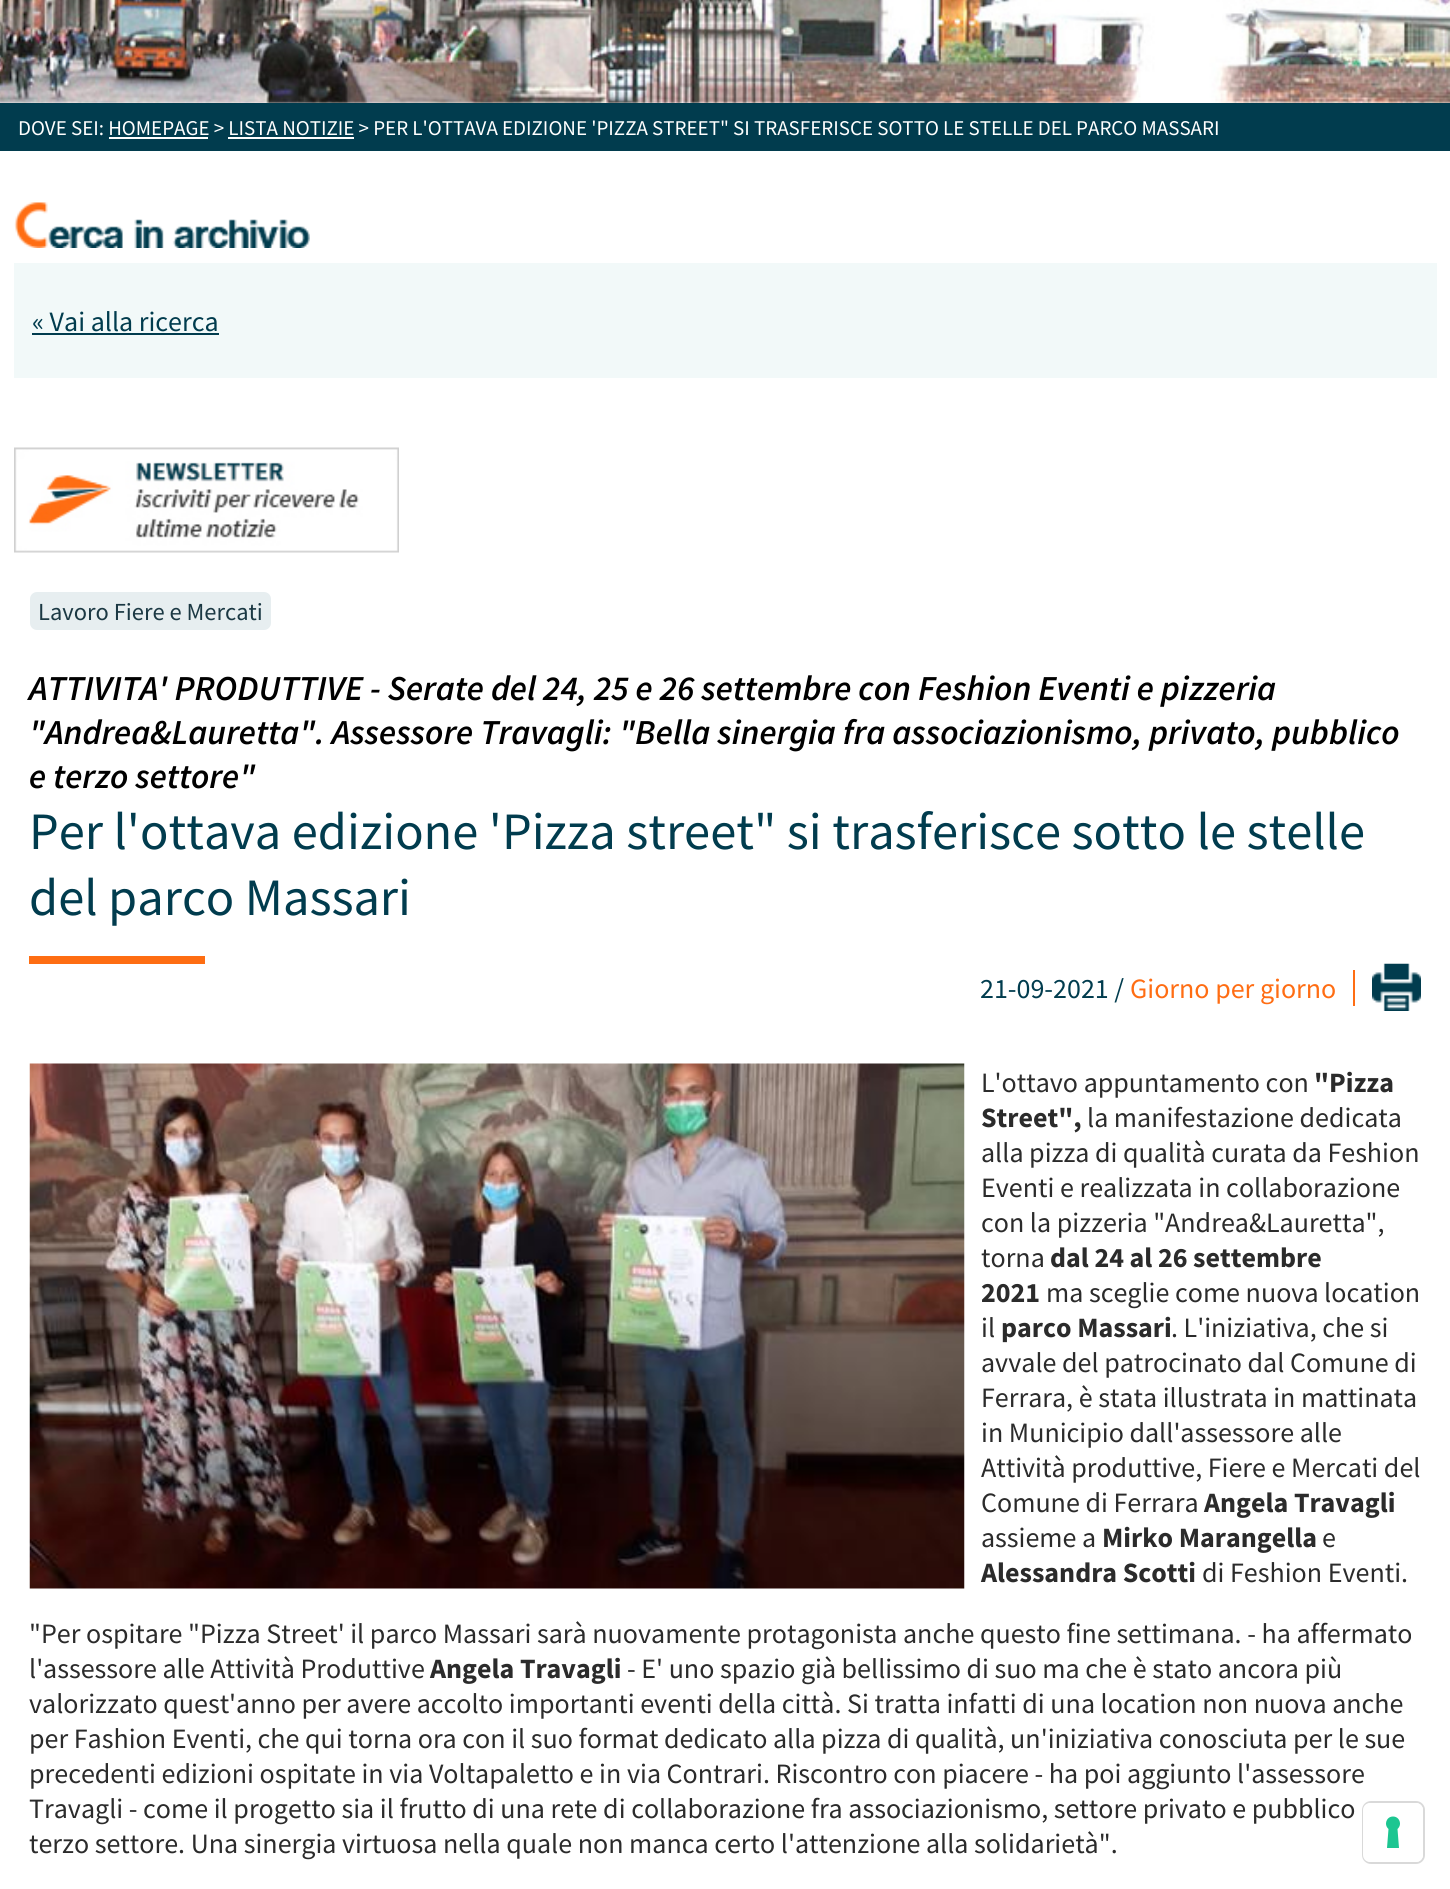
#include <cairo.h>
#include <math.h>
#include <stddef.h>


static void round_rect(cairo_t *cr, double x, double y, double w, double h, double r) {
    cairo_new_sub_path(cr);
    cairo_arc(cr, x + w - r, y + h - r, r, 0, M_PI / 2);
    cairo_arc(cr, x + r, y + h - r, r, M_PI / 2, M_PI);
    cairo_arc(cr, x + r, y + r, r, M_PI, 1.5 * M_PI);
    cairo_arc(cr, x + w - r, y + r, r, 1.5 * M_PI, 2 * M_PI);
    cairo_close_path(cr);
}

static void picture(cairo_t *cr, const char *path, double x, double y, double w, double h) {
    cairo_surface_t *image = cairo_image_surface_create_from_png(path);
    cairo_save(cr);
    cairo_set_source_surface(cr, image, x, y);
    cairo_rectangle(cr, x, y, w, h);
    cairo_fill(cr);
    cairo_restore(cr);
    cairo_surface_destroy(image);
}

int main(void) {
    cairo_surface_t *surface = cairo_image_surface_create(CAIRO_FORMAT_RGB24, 1450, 1889);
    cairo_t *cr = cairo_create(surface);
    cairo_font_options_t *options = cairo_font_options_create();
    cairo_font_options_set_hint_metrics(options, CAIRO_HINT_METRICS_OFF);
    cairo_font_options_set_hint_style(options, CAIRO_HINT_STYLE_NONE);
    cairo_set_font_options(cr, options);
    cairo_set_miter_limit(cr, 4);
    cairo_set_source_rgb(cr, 1, 1, 1);
    cairo_paint(cr);
    picture(cr, "img1.png", 0, 0, 1450, 103);
    cairo_set_source_rgb(cr, 0.004, 0.235, 0.306);
    cairo_rectangle(cr, 0, 103, 1450, 48);
    cairo_fill(cr);
    cairo_select_font_face(cr, "Source Sans Pro", CAIRO_FONT_SLANT_NORMAL, CAIRO_FONT_WEIGHT_NORMAL);
    cairo_set_font_size(cr, 21);
    cairo_set_source_rgb(cr, 1, 1, 1);
    cairo_move_to(cr, 18, 135);
    cairo_show_text(cr, "DOVE SEI: HOMEPAGE > LISTA NOTIZIE > PER L'OTTAVA EDIZIONE 'PIZZA STREET\" SI TRASFERISCE SOTTO LE STELLE DEL PARCO MASSARI");
    cairo_rectangle(cr, 109, 137, 99, 2);
    cairo_fill(cr);
    cairo_rectangle(cr, 228, 137, 126, 2);
    cairo_fill(cr);
    picture(cr, "img2.png", 14, 202, 296, 46);
    cairo_set_source_rgb(cr, 0.949, 0.973, 0.973);
    cairo_rectangle(cr, 14, 263, 1423, 115);
    cairo_fill(cr);
    cairo_set_font_size(cr, 28);
    cairo_set_source_rgb(cr, 0.004, 0.235, 0.306);
    cairo_move_to(cr, 32, 331);
    cairo_show_text(cr, "« Vai alla ricerca");
    cairo_rectangle(cr, 32, 333, 187, 2);
    cairo_fill(cr);
    picture(cr, "img3.png", 14, 447, 385, 106);
    cairo_set_source_rgb(cr, 0.906, 0.933, 0.941);
    round_rect(cr, 30, 592, 241, 38, 7);
    cairo_fill(cr);
    cairo_set_font_size(cr, 24.5);
    cairo_set_source_rgb(cr, 0.106, 0.22, 0.263);
    cairo_move_to(cr, 38, 620);
    cairo_show_text(cr, "Lavoro Fiere e Mercati");
    cairo_set_source_rgb(cr, 0.996, 0.427, 0.071);
    cairo_rectangle(cr, 29, 956, 176, 8);
    cairo_fill(cr);
    cairo_select_font_face(cr, "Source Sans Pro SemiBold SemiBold", CAIRO_FONT_SLANT_ITALIC, CAIRO_FONT_WEIGHT_NORMAL);
    cairo_set_font_size(cr, 35);
    cairo_set_source_rgb(cr, 0, 0, 0);
    cairo_move_to(cr, 29, 700);
    cairo_show_text(cr, "ATTIVITA' PRODUTTIVE - Serate del 24, 25 e 26 settembre con Feshion Eventi e pizzeria");
    cairo_move_to(cr, 29, 744);
    cairo_show_text(cr, "\"Andrea&Lauretta\". Assessore Travagli: \"Bella sinergia fra associazionismo, privato, pubblico");
    cairo_move_to(cr, 29, 788);
    cairo_show_text(cr, "e terzo settore\"");
    cairo_select_font_face(cr, "Source Sans Pro", CAIRO_FONT_SLANT_NORMAL, CAIRO_FONT_WEIGHT_NORMAL);
    cairo_set_font_size(cr, 52.5);
    cairo_set_source_rgb(cr, 0.004, 0.235, 0.306);
    cairo_move_to(cr, 29, 849);
    cairo_show_text(cr, "Per l'ottava edizione 'Pizza street\" si trasferisce sotto le stelle");
    cairo_move_to(cr, 29, 915);
    cairo_show_text(cr, "del parco Massari");
    cairo_set_source_rgb(cr, 1, 0.427, 0.075);
    cairo_rectangle(cr, 1353, 970, 2, 36);
    cairo_fill(cr);
    cairo_set_font_size(cr, 28);
    cairo_set_source_rgb(cr, 0.004, 0.235, 0.306);
    cairo_move_to(cr, 980, 998);
    cairo_show_text(cr, "21-09-2021 /");
    cairo_set_source_rgb(cr, 1, 0.427, 0.075);
    cairo_move_to(cr, 1130, 998);
    cairo_show_text(cr, "Giorno per giorno");
    picture(cr, "img4.png", 1372, 963, 49, 48);
    picture(cr, "img5.png", 29, 1063, 936, 526);
    cairo_set_source_rgb(cr, 0.169, 0.169, 0.169);
    cairo_move_to(cr, 981, 1092);
    cairo_show_text(cr, "L'ottavo appuntamento con");
    cairo_select_font_face(cr, "Source Sans Pro", CAIRO_FONT_SLANT_NORMAL, CAIRO_FONT_WEIGHT_BOLD);
    cairo_move_to(cr, 1314, 1092);
    cairo_show_text(cr, "\"Pizza");
    cairo_move_to(cr, 981, 1127);
    cairo_show_text(cr, "Street\",");
    cairo_select_font_face(cr, "Source Sans Pro", CAIRO_FONT_SLANT_NORMAL, CAIRO_FONT_WEIGHT_NORMAL);
    cairo_move_to(cr, 1087, 1127);
    cairo_show_text(cr, "la manifestazione dedicata");
    cairo_move_to(cr, 981, 1162);
    cairo_show_text(cr, "alla pizza di qualità curata da Feshion");
    cairo_move_to(cr, 981, 1197);
    cairo_show_text(cr, "Eventi e realizzata in collaborazione");
    cairo_move_to(cr, 981, 1232);
    cairo_show_text(cr, "con la pizzeria \"Andrea&Lauretta\",");
    cairo_move_to(cr, 981, 1267);
    cairo_show_text(cr, "torna");
    cairo_select_font_face(cr, "Source Sans Pro", CAIRO_FONT_SLANT_NORMAL, CAIRO_FONT_WEIGHT_BOLD);
    cairo_move_to(cr, 1050, 1267);
    cairo_show_text(cr, "dal 24 al 26 settembre");
    cairo_move_to(cr, 981, 1302);
    cairo_show_text(cr, "2021");
    cairo_select_font_face(cr, "Source Sans Pro", CAIRO_FONT_SLANT_NORMAL, CAIRO_FONT_WEIGHT_NORMAL);
    cairo_move_to(cr, 1046, 1302);
    cairo_show_text(cr, "ma sceglie come nuova location");
    cairo_move_to(cr, 981, 1337);
    cairo_show_text(cr, "il");
    cairo_select_font_face(cr, "Source Sans Pro", CAIRO_FONT_SLANT_NORMAL, CAIRO_FONT_WEIGHT_BOLD);
    cairo_move_to(cr, 1001, 1337);
    cairo_show_text(cr, "parco Massari");
    cairo_select_font_face(cr, "Source Sans Pro", CAIRO_FONT_SLANT_NORMAL, CAIRO_FONT_WEIGHT_NORMAL);
    cairo_move_to(cr, 1171, 1337);
    cairo_show_text(cr, ". L'iniziativa, che si");
    cairo_move_to(cr, 981, 1372);
    cairo_show_text(cr, "avvale del patrocinato dal Comune di");
    cairo_move_to(cr, 981, 1407);
    cairo_show_text(cr, "Ferrara, è stata illustrata in mattinata");
    cairo_move_to(cr, 981, 1442);
    cairo_show_text(cr, "in Municipio dall'assessore alle");
    cairo_move_to(cr, 981, 1477);
    cairo_show_text(cr, "Attività produttive, Fiere e Mercati del");
    cairo_move_to(cr, 981, 1512);
    cairo_show_text(cr, "Comune di Ferrara");
    cairo_select_font_face(cr, "Source Sans Pro", CAIRO_FONT_SLANT_NORMAL, CAIRO_FONT_WEIGHT_BOLD);
    cairo_move_to(cr, 1204, 1512);
    cairo_show_text(cr, "Angela Travagli");
    cairo_select_font_face(cr, "Source Sans Pro", CAIRO_FONT_SLANT_NORMAL, CAIRO_FONT_WEIGHT_NORMAL);
    cairo_move_to(cr, 981, 1547);
    cairo_show_text(cr, "assieme a");
    cairo_select_font_face(cr, "Source Sans Pro", CAIRO_FONT_SLANT_NORMAL, CAIRO_FONT_WEIGHT_BOLD);
    cairo_move_to(cr, 1102, 1547);
    cairo_show_text(cr, "Mirko Marangella");
    cairo_select_font_face(cr, "Source Sans Pro", CAIRO_FONT_SLANT_NORMAL, CAIRO_FONT_WEIGHT_NORMAL);
    cairo_move_to(cr, 1322, 1547);
    cairo_show_text(cr, "e");
    cairo_select_font_face(cr, "Source Sans Pro", CAIRO_FONT_SLANT_NORMAL, CAIRO_FONT_WEIGHT_BOLD);
    cairo_move_to(cr, 981, 1582);
    cairo_show_text(cr, "Alessandra Scotti");
    cairo_select_font_face(cr, "Source Sans Pro", CAIRO_FONT_SLANT_NORMAL, CAIRO_FONT_WEIGHT_NORMAL);
    cairo_move_to(cr, 1202, 1582);
    cairo_show_text(cr, "di Feshion Eventi.");
    cairo_move_to(cr, 29, 1643);
    cairo_show_text(cr, "\"Per ospitare \"Pizza Street' il parco Massari sarà nuovamente protagonista anche questo fine settimana. - ha affermato");
    cairo_move_to(cr, 29, 1678);
    cairo_show_text(cr, "l'assessore alle Attività Produttive");
    cairo_select_font_face(cr, "Source Sans Pro", CAIRO_FONT_SLANT_NORMAL, CAIRO_FONT_WEIGHT_BOLD);
    cairo_move_to(cr, 430, 1678);
    cairo_show_text(cr, "Angela Travagli");
    cairo_select_font_face(cr, "Source Sans Pro", CAIRO_FONT_SLANT_NORMAL, CAIRO_FONT_WEIGHT_NORMAL);
    cairo_move_to(cr, 627, 1678);
    cairo_show_text(cr, "- E' uno spazio già bellissimo di suo ma che è stato ancora più");
    cairo_move_to(cr, 29, 1713);
    cairo_show_text(cr, "valorizzato quest'anno per avere accolto importanti eventi della città. Si tratta infatti di una location non nuova anche");
    cairo_move_to(cr, 29, 1748);
    cairo_show_text(cr, "per Fashion Eventi, che qui torna ora con il suo format dedicato alla pizza di qualità, un'iniziativa conosciuta per le sue");
    cairo_move_to(cr, 29, 1783);
    cairo_show_text(cr, "precedenti edizioni ospitate in via Voltapaletto e in via Contrari. Riscontro con piacere - ha poi aggiunto l'assessore");
    cairo_move_to(cr, 29, 1818);
    cairo_show_text(cr, "Travagli - come il progetto sia il frutto di una rete di collaborazione fra associazionismo, settore privato e pubblico");
    cairo_move_to(cr, 29, 1853);
    cairo_show_text(cr, "terzo settore. Una sinergia virtuosa nella quale non manca certo l'attenzione alla solidarietà\".");
    round_rect(cr, 1363, 1802, 61, 61, 8);
    cairo_set_source_rgba(cr, 0, 0, 0, 0.15);
    cairo_stroke(cr);
    cairo_set_source_rgb(cr, 1, 1, 1);
    round_rect(cr, 1363, 1803, 60, 59, 7);
    cairo_fill(cr);
    cairo_set_source_rgb(cr, 0.11, 0.776, 0.569);
    cairo_set_fill_rule(cr, CAIRO_FILL_RULE_EVEN_ODD);
    cairo_new_path(cr);
    cairo_move_to(cr, 1393, 1816.5);
    cairo_curve_to(cr, 1399.5, 1816.5, 1402.5, 1824.5, 1397.5, 1829);
    cairo_line_to(cr, 1399, 1848);
    cairo_line_to(cr, 1387, 1848);
    cairo_line_to(cr, 1388.5, 1829);
    cairo_curve_to(cr, 1383.5, 1824.5, 1386.5, 1816.5, 1393, 1816.5);
    cairo_close_path(cr);
    cairo_fill(cr);
    cairo_surface_write_to_png(surface, "page.png");
    cairo_font_options_destroy(options);
    cairo_destroy(cr);
    cairo_surface_destroy(surface);
    return 0;
}
